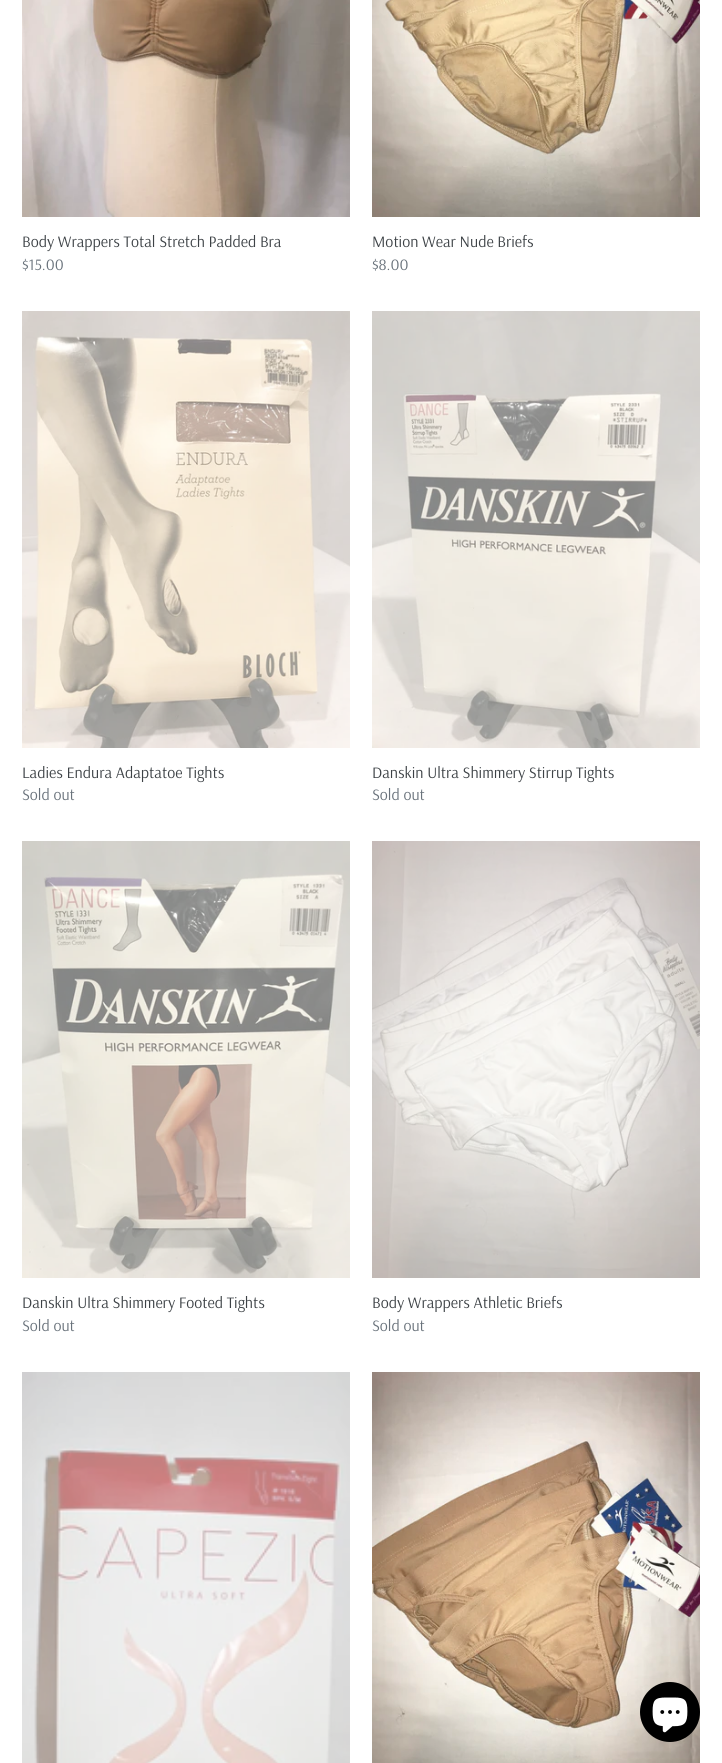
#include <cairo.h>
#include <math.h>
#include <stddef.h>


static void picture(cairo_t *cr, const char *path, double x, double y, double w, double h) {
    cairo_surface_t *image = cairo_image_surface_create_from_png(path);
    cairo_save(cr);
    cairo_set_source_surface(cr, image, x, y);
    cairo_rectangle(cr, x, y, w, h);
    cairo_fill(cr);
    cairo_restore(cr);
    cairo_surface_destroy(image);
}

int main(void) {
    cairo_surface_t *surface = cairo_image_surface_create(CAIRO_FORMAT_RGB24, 722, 1763);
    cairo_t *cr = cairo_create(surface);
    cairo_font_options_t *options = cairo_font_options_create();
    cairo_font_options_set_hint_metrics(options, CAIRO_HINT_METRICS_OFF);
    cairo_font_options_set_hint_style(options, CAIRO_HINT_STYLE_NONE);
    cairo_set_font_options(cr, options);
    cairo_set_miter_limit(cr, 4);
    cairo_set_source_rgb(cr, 1, 1, 1);
    cairo_paint(cr);
    picture(cr, "img1.png", 22, 0, 328, 217);
    cairo_select_font_face(cr, "Arsenal", CAIRO_FONT_SLANT_NORMAL, CAIRO_FONT_WEIGHT_NORMAL);
    cairo_set_font_size(cr, 16);
    cairo_set_source_rgb(cr, 0.239, 0.259, 0.275);
    cairo_move_to(cr, 22, 247);
    cairo_show_text(cr, "Body Wrappers Total Stretch Padded Bra");
    cairo_set_source_rgb(cr, 0.412, 0.447, 0.482);
    cairo_move_to(cr, 22, 270);
    cairo_show_text(cr, "$15.00");
    picture(cr, "img2.png", 372, 0, 328, 217);
    cairo_set_source_rgb(cr, 0.239, 0.259, 0.275);
    cairo_move_to(cr, 372, 247);
    cairo_show_text(cr, "Motion Wear Nude Briefs");
    cairo_set_source_rgb(cr, 0.412, 0.447, 0.482);
    cairo_move_to(cr, 372, 270);
    cairo_show_text(cr, "$8.00");
    picture(cr, "img3.png", 22, 311, 328, 437);
    cairo_set_source_rgb(cr, 0.239, 0.259, 0.275);
    cairo_move_to(cr, 22, 778);
    cairo_show_text(cr, "Ladies Endura Adaptatoe Tights");
    cairo_set_source_rgb(cr, 0.412, 0.447, 0.482);
    cairo_move_to(cr, 22, 800);
    cairo_show_text(cr, "Sold out");
    picture(cr, "img4.png", 372, 311, 328, 437);
    cairo_set_source_rgb(cr, 0.239, 0.259, 0.275);
    cairo_move_to(cr, 372, 778);
    cairo_show_text(cr, "Danskin Ultra Shimmery Stirrup Tights");
    cairo_set_source_rgb(cr, 0.412, 0.447, 0.482);
    cairo_move_to(cr, 372, 800);
    cairo_show_text(cr, "Sold out");
    picture(cr, "img5.png", 22, 841, 328, 437);
    cairo_set_source_rgb(cr, 0.239, 0.259, 0.275);
    cairo_move_to(cr, 22, 1308);
    cairo_show_text(cr, "Danskin Ultra Shimmery Footed Tights");
    cairo_set_source_rgb(cr, 0.412, 0.447, 0.482);
    cairo_move_to(cr, 22, 1331);
    cairo_show_text(cr, "Sold out");
    picture(cr, "img6.png", 372, 841, 328, 437);
    cairo_set_source_rgb(cr, 0.239, 0.259, 0.275);
    cairo_move_to(cr, 372, 1308);
    cairo_show_text(cr, "Body Wrappers Athletic Briefs");
    cairo_set_source_rgb(cr, 0.412, 0.447, 0.482);
    cairo_move_to(cr, 372, 1331);
    cairo_show_text(cr, "Sold out");
    picture(cr, "img7.png", 22, 1372, 328, 391);
    picture(cr, "img8.png", 372, 1372, 328, 391);
    cairo_set_source_rgb(cr, 0, 0, 0);
    cairo_arc(cr, 670, 1712, 30, 0, 2 * M_PI);
    cairo_fill(cr);
    picture(cr, "img9.png", 652, 1697, 36, 36);
    cairo_surface_write_to_png(surface, "page.png");
    cairo_font_options_destroy(options);
    cairo_destroy(cr);
    cairo_surface_destroy(surface);
    return 0;
}
